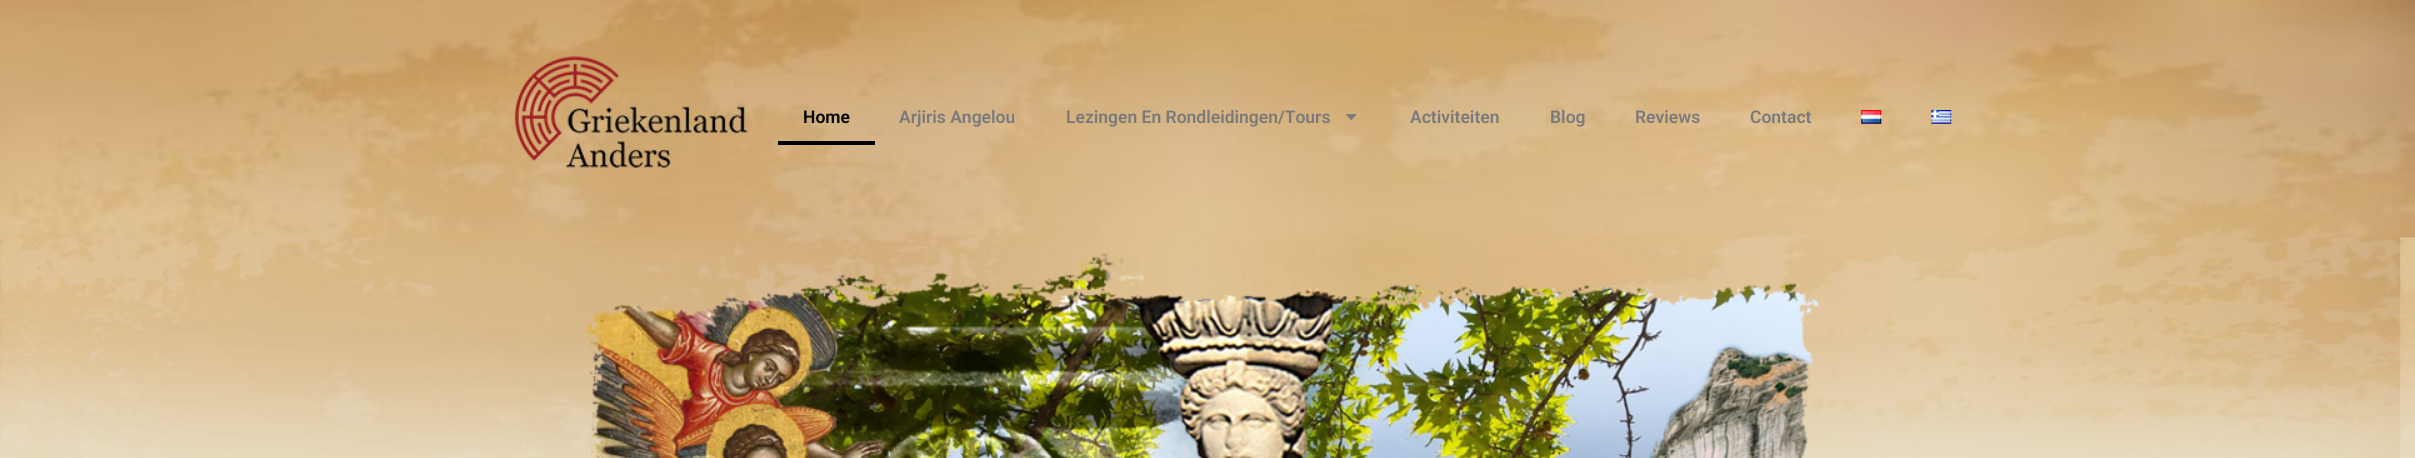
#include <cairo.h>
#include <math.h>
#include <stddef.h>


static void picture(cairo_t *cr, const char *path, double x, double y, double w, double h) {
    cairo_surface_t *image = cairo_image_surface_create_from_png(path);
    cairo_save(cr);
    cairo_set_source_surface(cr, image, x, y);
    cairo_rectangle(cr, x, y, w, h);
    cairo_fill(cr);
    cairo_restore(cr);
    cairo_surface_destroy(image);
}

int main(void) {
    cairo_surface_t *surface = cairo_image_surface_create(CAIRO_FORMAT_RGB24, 2415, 458);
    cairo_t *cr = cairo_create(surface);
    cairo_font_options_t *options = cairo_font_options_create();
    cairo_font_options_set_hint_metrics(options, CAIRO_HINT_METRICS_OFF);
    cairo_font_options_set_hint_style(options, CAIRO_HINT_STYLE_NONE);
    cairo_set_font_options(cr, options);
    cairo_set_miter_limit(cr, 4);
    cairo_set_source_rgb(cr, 1, 1, 1);
    cairo_paint(cr);
    picture(cr, "img1.png", 0, 237, 2415, 221);
    picture(cr, "img2.png", 0, 0, 2415, 238);
    picture(cr, "img3.png", 514, 56, 234, 112);
    cairo_select_font_face(cr, "Roboto SemiBold", CAIRO_FONT_SLANT_NORMAL, CAIRO_FONT_WEIGHT_NORMAL);
    cairo_set_font_size(cr, 17.5);
    cairo_set_source_rgb(cr, 0, 0, 0);
    cairo_move_to(cr, 803, 123);
    cairo_show_text(cr, "Home");
    cairo_rectangle(cr, 778, 141, 97, 4);
    cairo_fill(cr);
    cairo_set_source_rgb(cr, 0.478, 0.478, 0.478);
    cairo_move_to(cr, 899, 123);
    cairo_show_text(cr, "Arjiris Angelou");
    cairo_move_to(cr, 1066, 123);
    cairo_show_text(cr, "Lezingen En Rondleidingen/Tours");
    picture(cr, "img4.png", 1346, 114, 11, 6);
    cairo_move_to(cr, 1410, 123);
    cairo_show_text(cr, "Activiteiten");
    cairo_move_to(cr, 1550, 123);
    cairo_show_text(cr, "Blog");
    cairo_move_to(cr, 1635, 123);
    cairo_show_text(cr, "Reviews");
    cairo_move_to(cr, 1750, 123);
    cairo_show_text(cr, "Contact");
    picture(cr, "img5.png", 1861, 110, 21, 14);
    picture(cr, "img6.png", 1931, 110, 21, 14);
    picture(cr, "img7.png", 585, 250, 1234, 208);
    cairo_surface_write_to_png(surface, "page.png");
    cairo_font_options_destroy(options);
    cairo_destroy(cr);
    cairo_surface_destroy(surface);
    return 0;
}
